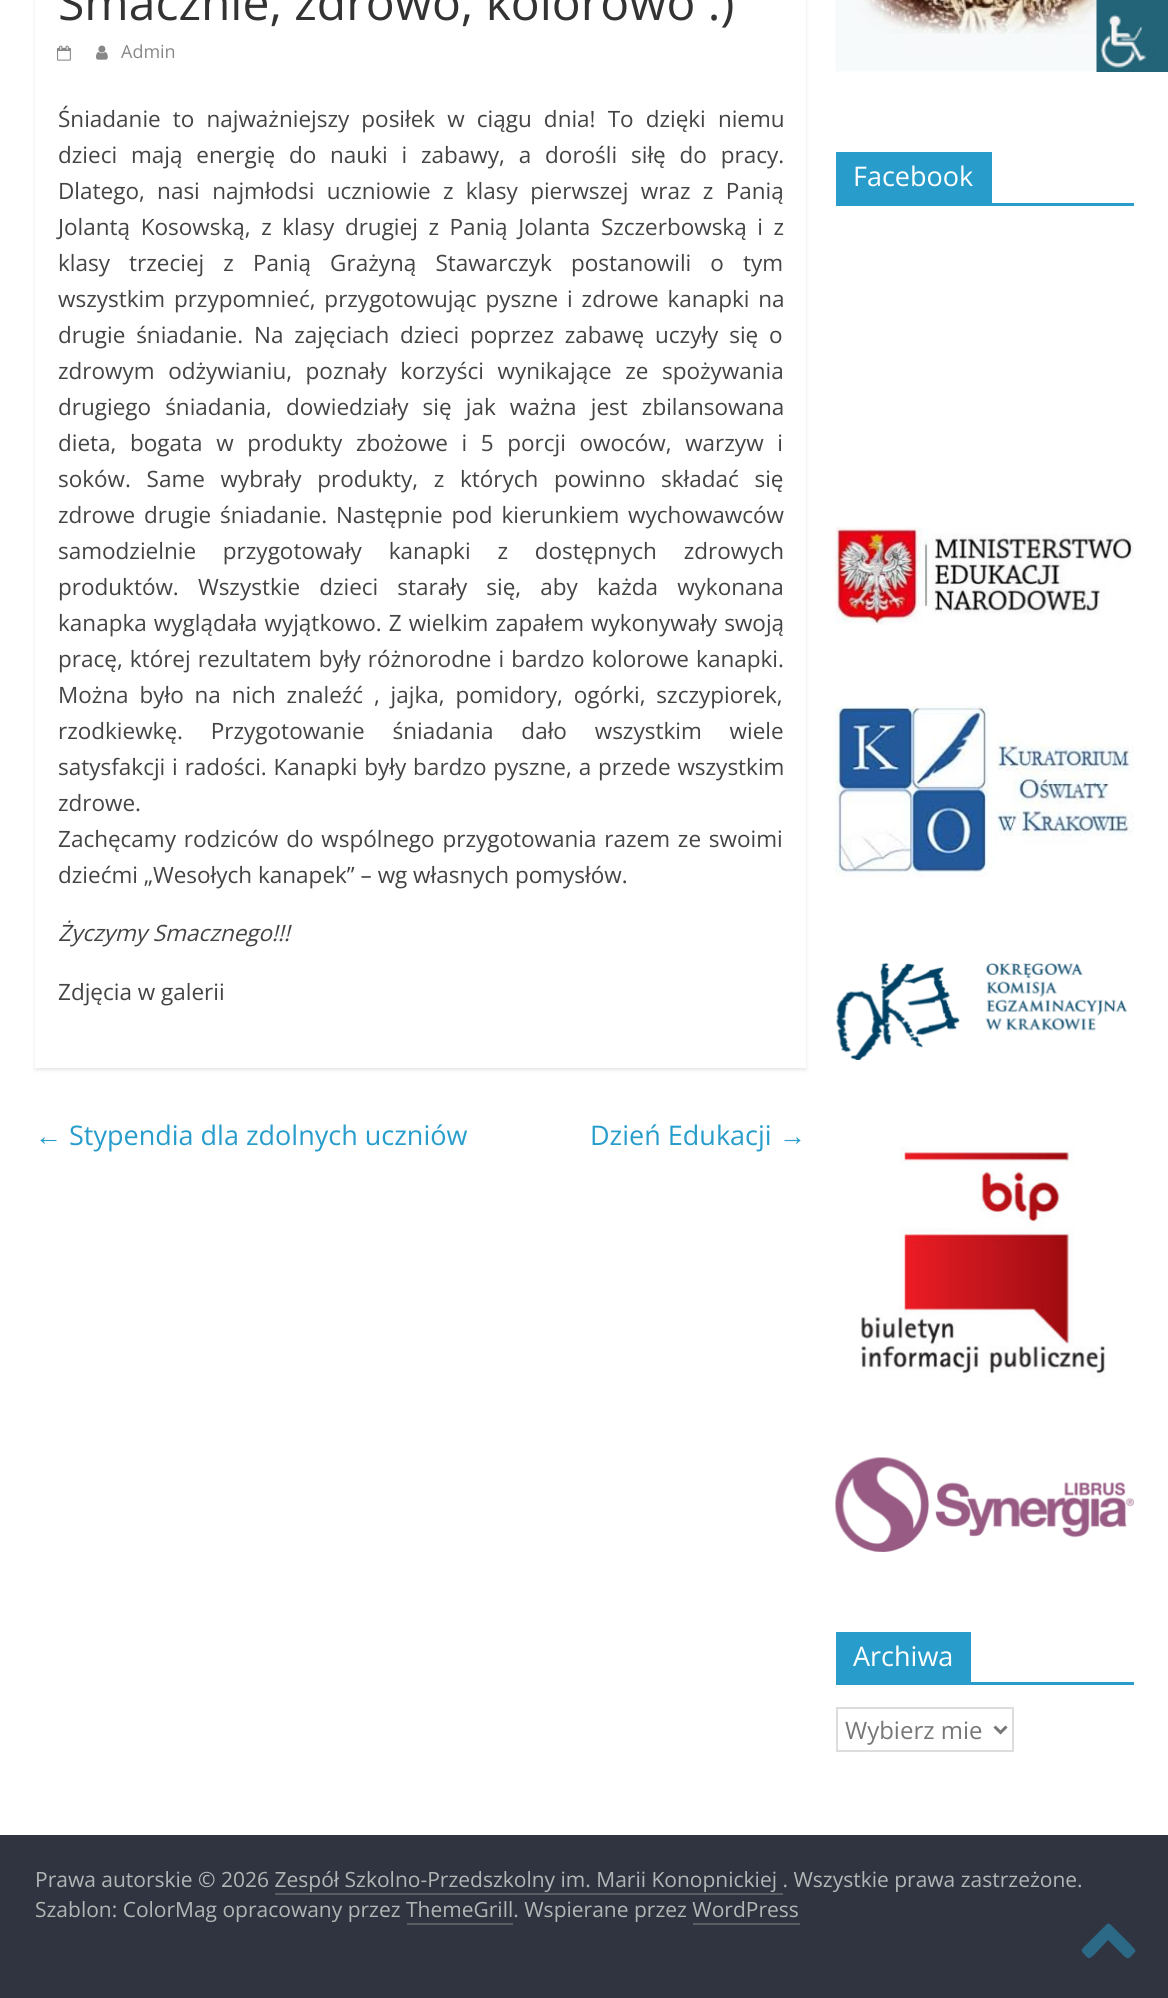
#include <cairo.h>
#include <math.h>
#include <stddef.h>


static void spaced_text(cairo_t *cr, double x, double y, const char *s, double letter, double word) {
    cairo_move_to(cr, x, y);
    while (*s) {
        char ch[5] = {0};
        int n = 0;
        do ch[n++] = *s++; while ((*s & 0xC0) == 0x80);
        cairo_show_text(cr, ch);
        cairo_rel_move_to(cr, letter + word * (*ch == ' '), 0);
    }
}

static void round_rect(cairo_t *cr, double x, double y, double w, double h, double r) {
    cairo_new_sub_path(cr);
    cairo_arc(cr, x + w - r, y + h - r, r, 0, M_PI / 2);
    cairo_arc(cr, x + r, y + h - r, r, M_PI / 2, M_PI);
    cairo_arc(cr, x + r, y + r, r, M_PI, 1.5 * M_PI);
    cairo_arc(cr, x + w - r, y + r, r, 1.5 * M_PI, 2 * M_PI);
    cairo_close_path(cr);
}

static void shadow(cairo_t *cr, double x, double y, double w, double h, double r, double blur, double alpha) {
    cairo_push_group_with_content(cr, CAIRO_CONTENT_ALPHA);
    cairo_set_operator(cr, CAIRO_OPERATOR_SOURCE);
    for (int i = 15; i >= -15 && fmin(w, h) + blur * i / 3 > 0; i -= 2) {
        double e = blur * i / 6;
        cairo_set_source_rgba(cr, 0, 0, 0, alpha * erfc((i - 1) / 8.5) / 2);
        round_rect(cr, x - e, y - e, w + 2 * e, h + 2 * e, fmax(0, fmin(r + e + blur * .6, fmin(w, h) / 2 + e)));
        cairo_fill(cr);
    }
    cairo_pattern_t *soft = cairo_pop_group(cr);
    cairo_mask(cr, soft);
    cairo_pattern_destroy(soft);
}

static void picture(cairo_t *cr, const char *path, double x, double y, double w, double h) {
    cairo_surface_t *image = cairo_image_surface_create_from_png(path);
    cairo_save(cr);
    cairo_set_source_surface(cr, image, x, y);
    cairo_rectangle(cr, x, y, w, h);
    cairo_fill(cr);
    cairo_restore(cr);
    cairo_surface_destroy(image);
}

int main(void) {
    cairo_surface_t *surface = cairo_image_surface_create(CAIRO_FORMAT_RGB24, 1168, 1998);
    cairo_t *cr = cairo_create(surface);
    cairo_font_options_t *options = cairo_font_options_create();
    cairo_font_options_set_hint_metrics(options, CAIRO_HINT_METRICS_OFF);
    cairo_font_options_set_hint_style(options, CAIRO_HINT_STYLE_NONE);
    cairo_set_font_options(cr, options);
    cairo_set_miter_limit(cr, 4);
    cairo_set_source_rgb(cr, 1, 1, 1);
    cairo_paint(cr);
    cairo_save(cr);
    cairo_set_fill_rule(cr, CAIRO_FILL_RULE_EVEN_ODD);
    cairo_new_path(cr);
    cairo_move_to(cr, 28, 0);
    cairo_line_to(cr, 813, 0);
    cairo_line_to(cr, 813, 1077);
    cairo_line_to(cr, 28, 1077);
    cairo_close_path(cr);
    cairo_move_to(cr, 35, -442);
    cairo_line_to(cr, 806, -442);
    cairo_line_to(cr, 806, 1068);
    cairo_line_to(cr, 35, 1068);
    cairo_close_path(cr);
    cairo_clip(cr);
    cairo_set_source_rgb(cr, 0, 0, 0);
    shadow(cr, 35, -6, 771, 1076, 0, 2, 0.1);
    cairo_restore(cr);
    cairo_select_font_face(cr, "Open Sans", CAIRO_FONT_SLANT_NORMAL, CAIRO_FONT_WEIGHT_NORMAL);
    cairo_set_font_size(cr, 48);
    cairo_set_source_rgb(cr, 0.2, 0.2, 0.2);
    cairo_move_to(cr, 58, 20);
    cairo_show_text(cr, "Smacznie, zdrowo, kolorowo :)");
    picture(cr, "img1.png", 57, 45, 14, 16);
    picture(cr, "img2.png", 96, 45, 12, 15);
    cairo_set_font_size(cr, 18);
    cairo_set_source_rgb(cr, 0.533, 0.533, 0.533);
    cairo_move_to(cr, 121, 58);
    cairo_show_text(cr, "Admin");
    cairo_set_font_size(cr, 22.5);
    cairo_set_source_rgb(cr, 0.267, 0.267, 0.267);
    spaced_text(cr, 58, 127, "Śniadanie to najważniejszy posiłek w ciągu dnia! To dzięki niemu", 0, 6.25);
    spaced_text(cr, 58, 163, "dzieci mają energię do nauki i zabawy, a dorośli siłę do pracy.", 0, 8);
    spaced_text(cr, 58, 199, "Dlatego, nasi najmłodsi uczniowie z klasy pierwszej wraz z Panią", 0, 6.5);
    spaced_text(cr, 58, 235, "Jolantą Kosowską, z klasy drugiej z Panią Jolanta Szczerbowską i z", 0, 4.75);
    spaced_text(cr, 58, 271, "klasy trzeciej z Panią Grażyną Stawarczyk postanowili o tym", 0, 13.25);
    spaced_text(cr, 58, 307, "wszystkim przypomnieć, przygotowując pyszne i zdrowe kanapki na", 0, 3);
    spaced_text(cr, 58, 343, "drugie śniadanie.", 0, 5);
    spaced_text(cr, 254, 343, "Na zajęciach dzieci poprzez zabawę uczyły się o", 0, 5);
    spaced_text(cr, 58, 379, "zdrowym odżywianiu, poznały korzyści wynikające ze spożywania", 0, 7.75);
    spaced_text(cr, 58, 415, "drugiego śniadania, dowiedziały się jak ważna jest zbilansowana", 0, 8.25);
    spaced_text(cr, 58, 451, "dieta, bogata w produkty zbożowe i 5 porcji owoców, warzyw i", 0, 7.75);
    spaced_text(cr, 58, 487, "soków. Same wybrały produkty, z których powinno składać się", 0, 9.75);
    spaced_text(cr, 58, 523, "zdrowe drugie śniadanie. Następnie pod kierunkiem wychowawców", 0, 3);
    spaced_text(cr, 58, 559, "samodzielnie przygotowały kanapki z dostępnych zdrowych", 0, 21);
    spaced_text(cr, 58, 595, "produktów. Wszystkie dzieci starały się, aby każda wykonana", 0, 13.25);
    spaced_text(cr, 58, 631, "kanapka wyglądała wyjątkowo. Z wielkim zapałem wykonywały swoją", 0, 1.25);
    spaced_text(cr, 58, 667, "pracę, której rezultatem były różnorodne i bardzo kolorowe kanapki.", 0, 1.25);
    spaced_text(cr, 58, 703, "Można było na nich znaleźć , jajka, pomidory, ogórki, szczypiorek,", 0, 5);
    spaced_text(cr, 58, 739, "rzodkiewkę. Przygotowanie śniadania dało wszystkim wiele", 0, 22);
    spaced_text(cr, 58, 775, "satysfakcji i radości. Kanapki były bardzo pyszne, a przede wszystkim", 0, 1);
    cairo_move_to(cr, 58, 811);
    cairo_show_text(cr, "zdrowe.");
    spaced_text(cr, 58, 847, "Zachęcamy rodziców do wspólnego przygotowania razem ze swoimi", 0, 2);
    cairo_move_to(cr, 58, 883);
    cairo_show_text(cr, "dziećmi „Wesołych kanapek” – wg własnych pomysłów.");
    cairo_select_font_face(cr, "Open Sans", CAIRO_FONT_SLANT_ITALIC, CAIRO_FONT_WEIGHT_NORMAL);
    cairo_move_to(cr, 58, 941);
    cairo_show_text(cr, "Życzymy Smacznego!!!");
    cairo_select_font_face(cr, "Open Sans", CAIRO_FONT_SLANT_NORMAL, CAIRO_FONT_WEIGHT_NORMAL);
    cairo_move_to(cr, 58, 1000);
    cairo_show_text(cr, "Zdjęcia w galerii");
    cairo_select_font_face(cr, "Liberation Serif", CAIRO_FONT_SLANT_NORMAL, CAIRO_FONT_WEIGHT_NORMAL);
    cairo_set_font_size(cr, 27);
    cairo_set_source_rgb(cr, 0.157, 0.616, 0.8);
    cairo_move_to(cr, 35, 1145);
    cairo_show_text(cr, "←");
    cairo_select_font_face(cr, "Open Sans", CAIRO_FONT_SLANT_NORMAL, CAIRO_FONT_WEIGHT_NORMAL);
    cairo_move_to(cr, 69, 1145);
    cairo_show_text(cr, "Stypendia dla zdolnych uczniów");
    cairo_move_to(cr, 590, 1145);
    cairo_show_text(cr, "Dzień Edukacji");
    cairo_select_font_face(cr, "Liberation Serif", CAIRO_FONT_SLANT_NORMAL, CAIRO_FONT_WEIGHT_NORMAL);
    cairo_move_to(cr, 779, 1145);
    cairo_show_text(cr, "→");
    picture(cr, "img3.png", 835, 0, 262, 72);
    cairo_rectangle(cr, 836, 203, 298, 3);
    cairo_fill(cr);
    cairo_rectangle(cr, 836, 152, 156, 51);
    cairo_fill(cr);
    cairo_select_font_face(cr, "Open Sans", CAIRO_FONT_SLANT_NORMAL, CAIRO_FONT_WEIGHT_NORMAL);
    cairo_set_source_rgb(cr, 1, 1, 1);
    cairo_move_to(cr, 853, 186);
    cairo_show_text(cr, "Facebook");
    picture(cr, "img4.png", 835, 527, 299, 98);
    picture(cr, "img5.png", 835, 706, 299, 172);
    picture(cr, "img6.png", 836, 963, 292, 97);
    picture(cr, "img7.png", 860, 1147, 246, 231);
    picture(cr, "img8.png", 835, 1457, 299, 95);
    cairo_set_source_rgb(cr, 0.157, 0.616, 0.8);
    cairo_rectangle(cr, 836, 1682, 298, 3);
    cairo_fill(cr);
    cairo_rectangle(cr, 836, 1632, 135, 50);
    cairo_fill(cr);
    cairo_set_source_rgb(cr, 1, 1, 1);
    cairo_move_to(cr, 853, 1666);
    cairo_show_text(cr, "Archiwa");
    cairo_rectangle(cr, 837, 1708, 176, 43);
    cairo_set_source_rgb(cr, 0.867, 0.867, 0.867);
    cairo_stroke(cr);
    cairo_new_path(cr);
    cairo_move_to(cr, 994.5, 1726.5);
    cairo_line_to(cr, 1000.5, 1732.5);
    cairo_line_to(cr, 1006.5, 1726.5);
    cairo_set_source_rgb(cr, 0.467, 0.467, 0.467);
    cairo_set_line_width(cr, 3);
    cairo_stroke(cr);
    cairo_set_font_size(cr, 24);
    cairo_move_to(cr, 845, 1739);
    cairo_show_text(cr, "Wybierz mie");
    cairo_set_source_rgb(cr, 0.188, 0.204, 0.251);
    cairo_rectangle(cr, 0, 1835, 1168, 163);
    cairo_fill(cr);
    cairo_set_font_size(cr, 21);
    cairo_set_source_rgb(cr, 0.694, 0.714, 0.714);
    cairo_move_to(cr, 35, 1887);
    cairo_show_text(cr, "Prawa autorskie © 2026 Zespół Szkolno-Przedszkolny im. Marii Konopnickiej . Wszystkie prawa zastrzeżone.");
    cairo_set_source_rgb(cr, 0.353, 0.365, 0.384);
    cairo_rectangle(cr, 275, 1893, 508, 2);
    cairo_fill(cr);
    cairo_set_source_rgb(cr, 0.694, 0.714, 0.714);
    cairo_move_to(cr, 35, 1917);
    cairo_show_text(cr, "Szablon: ColorMag opracowany przez ThemeGrill. Wspierane przez WordPress");
    cairo_set_source_rgb(cr, 0.353, 0.365, 0.384);
    cairo_rectangle(cr, 407, 1923, 106, 2);
    cairo_fill(cr);
    cairo_rectangle(cr, 693, 1923, 107, 2);
    cairo_fill(cr);
    cairo_set_source_rgb(cr, 0.173, 0.412, 0.525);
    cairo_new_path(cr);
    cairo_move_to(cr, 1135, 1952);
    cairo_curve_to(cr, 1129, 1958, 1129, 1961, 1123, 1955);
    cairo_line_to(cr, 1108, 1940);
    cairo_line_to(cr, 1094, 1955);
    cairo_curve_to(cr, 1088, 1960, 1089, 1959, 1083, 1953);
    cairo_curve_to(cr, 1080, 1950, 1083, 1948, 1086, 1945);
    cairo_line_to(cr, 1103, 1928);
    cairo_curve_to(cr, 1109, 1922, 1108, 1922, 1114, 1928);
    cairo_line_to(cr, 1131, 1945);
    cairo_curve_to(cr, 1131, 1946, 1137, 1950, 1135, 1952);
    cairo_close_path(cr);
    cairo_fill(cr);
    picture(cr, "img9.png", 1096, 0, 72, 72);
    cairo_surface_write_to_png(surface, "page.png");
    cairo_font_options_destroy(options);
    cairo_destroy(cr);
    cairo_surface_destroy(surface);
    return 0;
}
